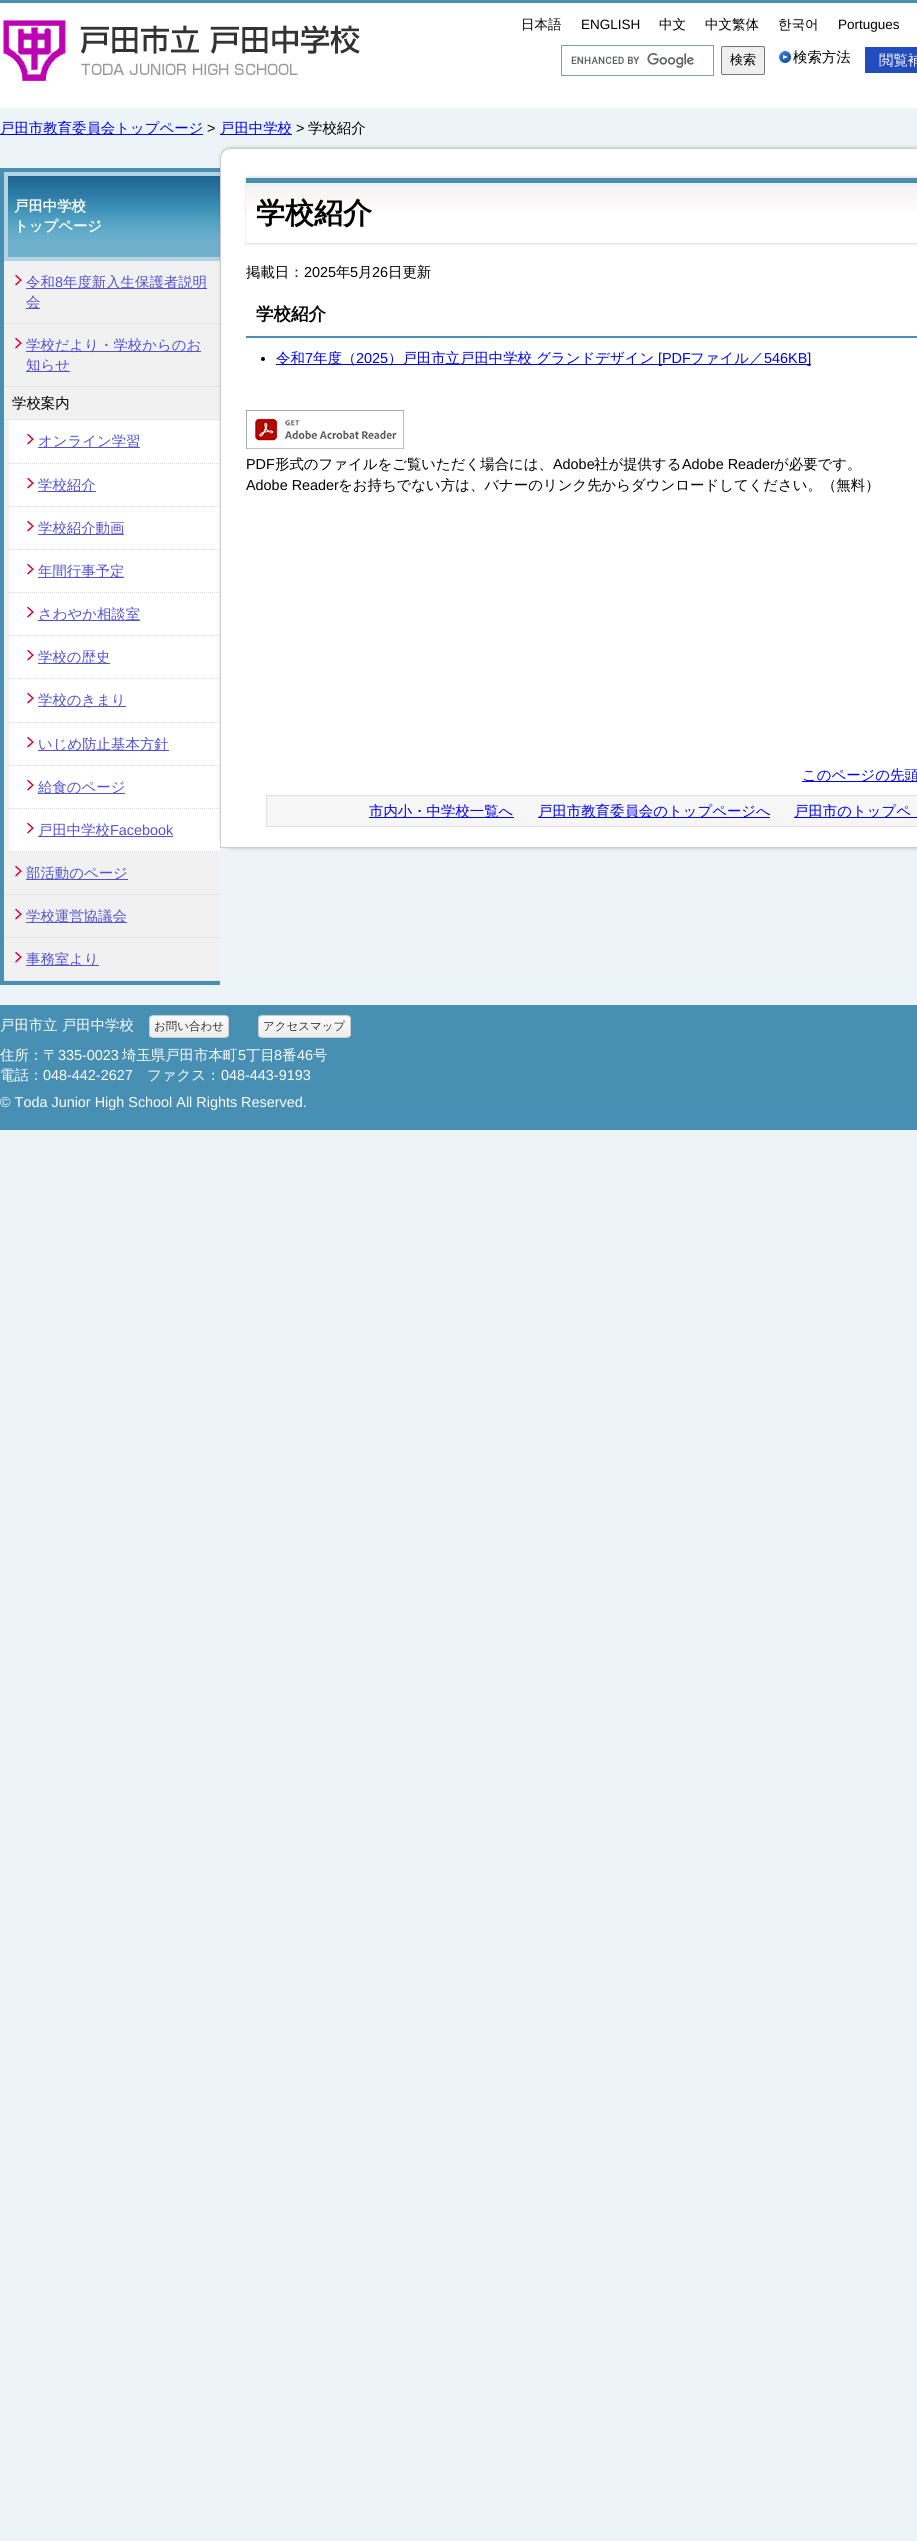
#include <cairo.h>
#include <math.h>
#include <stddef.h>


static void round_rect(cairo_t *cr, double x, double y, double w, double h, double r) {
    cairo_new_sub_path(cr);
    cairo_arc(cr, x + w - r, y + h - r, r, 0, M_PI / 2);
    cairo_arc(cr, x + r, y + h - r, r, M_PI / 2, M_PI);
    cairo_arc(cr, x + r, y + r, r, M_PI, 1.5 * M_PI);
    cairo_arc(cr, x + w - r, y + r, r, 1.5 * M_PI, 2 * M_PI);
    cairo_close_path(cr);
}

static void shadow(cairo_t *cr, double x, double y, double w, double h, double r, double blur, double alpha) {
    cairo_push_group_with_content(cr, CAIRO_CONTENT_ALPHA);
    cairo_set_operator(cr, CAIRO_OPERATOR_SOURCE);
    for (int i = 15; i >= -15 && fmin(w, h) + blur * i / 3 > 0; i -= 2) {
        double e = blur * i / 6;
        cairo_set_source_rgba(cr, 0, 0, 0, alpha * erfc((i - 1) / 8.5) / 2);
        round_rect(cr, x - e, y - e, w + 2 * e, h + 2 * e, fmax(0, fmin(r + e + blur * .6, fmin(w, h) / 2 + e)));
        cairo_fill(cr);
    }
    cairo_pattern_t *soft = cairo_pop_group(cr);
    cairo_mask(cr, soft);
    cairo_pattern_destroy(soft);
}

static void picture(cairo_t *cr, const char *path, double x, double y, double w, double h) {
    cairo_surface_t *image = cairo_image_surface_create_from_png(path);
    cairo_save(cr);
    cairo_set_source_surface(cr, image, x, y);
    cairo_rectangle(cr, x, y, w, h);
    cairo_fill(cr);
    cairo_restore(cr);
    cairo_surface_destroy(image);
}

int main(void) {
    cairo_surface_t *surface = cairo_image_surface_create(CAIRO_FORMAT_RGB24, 917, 2541);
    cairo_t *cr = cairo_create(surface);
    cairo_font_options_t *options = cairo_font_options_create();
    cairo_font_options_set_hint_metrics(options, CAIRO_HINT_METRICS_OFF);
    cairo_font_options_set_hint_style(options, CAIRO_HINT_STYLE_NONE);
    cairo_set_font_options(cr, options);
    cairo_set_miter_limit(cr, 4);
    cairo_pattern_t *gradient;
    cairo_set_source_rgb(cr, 0.925, 0.957, 0.969);
    cairo_paint(cr);
    cairo_set_source_rgb(cr, 1, 1, 1);
    cairo_rectangle(cr, 0, 3, 917, 105);
    cairo_fill(cr);
    cairo_set_source_rgb(cr, 0.282, 0.561, 0.706);
    cairo_rectangle(cr, 0, 0, 917, 3);
    cairo_fill(cr);
    picture(cr, "img1.png", 0, 16, 360, 69);
    cairo_select_font_face(cr, "WenQuanYi Zen Hei Medium", CAIRO_FONT_SLANT_NORMAL, CAIRO_FONT_WEIGHT_NORMAL);
    cairo_set_font_size(cr, 13.5);
    cairo_set_source_rgb(cr, 0, 0, 0);
    cairo_move_to(cr, 521, 29);
    cairo_show_text(cr, "日本語");
    cairo_select_font_face(cr, "Liberation Sans", CAIRO_FONT_SLANT_NORMAL, CAIRO_FONT_WEIGHT_NORMAL);
    cairo_move_to(cr, 581, 29);
    cairo_show_text(cr, "ENGLISH");
    cairo_select_font_face(cr, "WenQuanYi Zen Hei Medium", CAIRO_FONT_SLANT_NORMAL, CAIRO_FONT_WEIGHT_NORMAL);
    cairo_move_to(cr, 659, 29);
    cairo_show_text(cr, "中文");
    cairo_move_to(cr, 705, 29);
    cairo_show_text(cr, "中文繁体");
    cairo_move_to(cr, 778, 29);
    cairo_show_text(cr, "한국어");
    cairo_select_font_face(cr, "Liberation Sans", CAIRO_FONT_SLANT_NORMAL, CAIRO_FONT_WEIGHT_NORMAL);
    cairo_move_to(cr, 838, 29);
    cairo_show_text(cr, "Portugues");
    picture(cr, "img2.png", 571, 53, 123, 15);
    cairo_rectangle(cr, 561.5, 45.5, 152, 30);
    cairo_set_source_rgb(cr, 0.494, 0.616, 0.725);
    cairo_set_line_width(cr, 1);
    cairo_stroke(cr);
    cairo_set_source_rgb(cr, 0.937, 0.937, 0.937);
    round_rect(cr, 721.5, 46.5, 43, 28, 1.5);
    cairo_fill_preserve(cr);
    cairo_set_source_rgb(cr, 0.463, 0.463, 0.463);
    cairo_stroke(cr);
    cairo_select_font_face(cr, "WenQuanYi Zen Hei Medium", CAIRO_FONT_SLANT_NORMAL, CAIRO_FONT_WEIGHT_NORMAL);
    cairo_set_font_size(cr, 13);
    cairo_set_source_rgb(cr, 0, 0, 0);
    cairo_move_to(cr, 730, 64);
    cairo_show_text(cr, "検索");
    picture(cr, "img3.png", 779, 51, 12, 12);
    cairo_set_font_size(cr, 14.4);
    cairo_move_to(cr, 793, 62);
    cairo_show_text(cr, "検索方法");
    cairo_set_source_rgb(cr, 0.133, 0.302, 0.745);
    cairo_rectangle(cr, 865, 47, 52, 26);
    cairo_fill(cr);
    cairo_set_source_rgb(cr, 1, 1, 1);
    cairo_move_to(cr, 879, 65);
    cairo_show_text(cr, "閲覧補");
    cairo_set_source_rgb(cr, 0, 0, 0.933);
    cairo_rectangle(cr, 0, 134, 203, 1);
    cairo_fill(cr);
    cairo_move_to(cr, 0, 133);
    cairo_show_text(cr, "戸田市教育委員会トップページ");
    cairo_select_font_face(cr, "Liberation Sans", CAIRO_FONT_SLANT_NORMAL, CAIRO_FONT_WEIGHT_NORMAL);
    cairo_set_source_rgb(cr, 0, 0, 0);
    cairo_move_to(cr, 207, 133);
    cairo_show_text(cr, ">");
    cairo_set_source_rgb(cr, 0, 0, 0.933);
    cairo_rectangle(cr, 220, 134, 72, 1);
    cairo_fill(cr);
    cairo_select_font_face(cr, "WenQuanYi Zen Hei Medium", CAIRO_FONT_SLANT_NORMAL, CAIRO_FONT_WEIGHT_NORMAL);
    cairo_move_to(cr, 220, 133);
    cairo_show_text(cr, "戸田中学校");
    cairo_select_font_face(cr, "Liberation Sans", CAIRO_FONT_SLANT_NORMAL, CAIRO_FONT_WEIGHT_NORMAL);
    cairo_set_source_rgb(cr, 0, 0, 0);
    cairo_move_to(cr, 296, 133);
    cairo_show_text(cr, ">");
    cairo_select_font_face(cr, "WenQuanYi Zen Hei Medium", CAIRO_FONT_SLANT_NORMAL, CAIRO_FONT_WEIGHT_NORMAL);
    cairo_move_to(cr, 308, 133);
    cairo_show_text(cr, "学校紹介");
    cairo_set_source_rgb(cr, 1, 1, 1);
    cairo_rectangle(cr, 5, 420, 215, 432);
    cairo_fill(cr);
    cairo_set_source_rgb(cr, 0.282, 0.561, 0.706);
    cairo_rectangle(cr, 0, 168, 220, 4);
    cairo_fill(cr);
    cairo_rectangle(cr, 0, 981, 220, 4);
    cairo_fill(cr);
    cairo_rectangle(cr, 0, 168, 4, 817);
    cairo_fill(cr);
    cairo_set_source_rgb(cr, 0.431, 0.686, 0.796);
    cairo_rectangle(cr, 8, 239, 212, 18);
    cairo_fill(cr);
    picture(cr, "img4.png", 8, 176, 212, 63);
    cairo_set_source_rgb(cr, 0.706, 0.824, 0.886);
    cairo_rectangle(cr, 4, 172, 216, 4);
    cairo_fill(cr);
    cairo_rectangle(cr, 4, 257, 216, 4);
    cairo_fill(cr);
    cairo_rectangle(cr, 4, 172, 4, 89);
    cairo_fill(cr);
    cairo_select_font_face(cr, "WenQuanYi Zen Hei", CAIRO_FONT_SLANT_NORMAL, CAIRO_FONT_WEIGHT_BOLD);
    cairo_set_source_rgb(cr, 1, 1, 1);
    cairo_move_to(cr, 14, 211);
    cairo_show_text(cr, "戸田中学校");
    cairo_move_to(cr, 14, 231);
    cairo_show_text(cr, "トップページ");
    cairo_set_source_rgb(cr, 0.945, 0.945, 0.945);
    cairo_rectangle(cr, 4, 261, 216, 159);
    cairo_fill(cr);
    cairo_new_path(cr);
    cairo_move_to(cr, 4, 323.5);
    cairo_line_to(cr, 220, 323.5);
    cairo_set_source_rgb(cr, 0.863, 0.863, 0.863);
    cairo_set_dash(cr, (double[]){1, 1}, 2, 0);
    cairo_stroke(cr);
    picture(cr, "img5.png", 15, 274, 7, 12);
    cairo_set_source_rgb(cr, 0.329, 0.318, 0.827);
    cairo_rectangle(cr, 26, 288, 181, 1);
    cairo_fill(cr);
    cairo_select_font_face(cr, "WenQuanYi Zen Hei Medium", CAIRO_FONT_SLANT_NORMAL, CAIRO_FONT_WEIGHT_NORMAL);
    cairo_move_to(cr, 26, 287);
    cairo_show_text(cr, "令和");
    cairo_select_font_face(cr, "Liberation Sans", CAIRO_FONT_SLANT_NORMAL, CAIRO_FONT_WEIGHT_NORMAL);
    cairo_move_to(cr, 55, 287);
    cairo_show_text(cr, "8");
    cairo_select_font_face(cr, "WenQuanYi Zen Hei Medium", CAIRO_FONT_SLANT_NORMAL, CAIRO_FONT_WEIGHT_NORMAL);
    cairo_move_to(cr, 63, 287);
    cairo_show_text(cr, "年度新入生保護者説明");
    cairo_rectangle(cr, 26, 308, 14, 1);
    cairo_fill(cr);
    cairo_move_to(cr, 26, 307);
    cairo_show_text(cr, "会");
    cairo_new_path(cr);
    cairo_move_to(cr, 4, 386.5);
    cairo_line_to(cr, 220, 386.5);
    cairo_set_source_rgb(cr, 0.863, 0.863, 0.863);
    cairo_stroke(cr);
    picture(cr, "img5.png", 15, 337, 7, 12);
    cairo_set_source_rgb(cr, 0.329, 0.318, 0.827);
    cairo_rectangle(cr, 26, 351, 175, 1);
    cairo_fill(cr);
    cairo_move_to(cr, 26, 350);
    cairo_show_text(cr, "学校だより・学校からのお");
    cairo_rectangle(cr, 26, 371, 44, 1);
    cairo_fill(cr);
    cairo_move_to(cr, 26, 370);
    cairo_show_text(cr, "知らせ");
    cairo_new_path(cr);
    cairo_move_to(cr, 4, 419.5);
    cairo_line_to(cr, 220, 419.5);
    cairo_set_source_rgb(cr, 0.863, 0.863, 0.863);
    cairo_stroke(cr);
    cairo_set_source_rgb(cr, 0, 0, 0);
    cairo_move_to(cr, 12, 408);
    cairo_show_text(cr, "学校案内");
    cairo_new_path(cr);
    cairo_move_to(cr, 4, 463.5);
    cairo_line_to(cr, 220, 463.5);
    cairo_set_source_rgb(cr, 0.863, 0.863, 0.863);
    cairo_stroke(cr);
    cairo_set_source_rgb(cr, 0.945, 0.945, 0.945);
    cairo_new_path(cr);
    cairo_move_to(cr, 4, 464);
    cairo_line_to(cr, 4, 420);
    cairo_line_to(cr, 9, 420);
    cairo_line_to(cr, 9, 463);
    cairo_close_path(cr);
    cairo_fill(cr);
    picture(cr, "img6.png", 27, 433, 7, 12);
    cairo_set_source_rgb(cr, 0.329, 0.318, 0.827);
    cairo_rectangle(cr, 38, 447, 102, 1);
    cairo_fill(cr);
    cairo_move_to(cr, 38, 446);
    cairo_show_text(cr, "オンライン学習");
    cairo_new_path(cr);
    cairo_move_to(cr, 4, 506.5);
    cairo_line_to(cr, 220, 506.5);
    cairo_set_source_rgb(cr, 0.863, 0.863, 0.863);
    cairo_stroke(cr);
    cairo_set_source_rgb(cr, 0.945, 0.945, 0.945);
    cairo_new_path(cr);
    cairo_move_to(cr, 4, 507);
    cairo_line_to(cr, 4, 464);
    cairo_line_to(cr, 9, 464);
    cairo_line_to(cr, 9, 506);
    cairo_close_path(cr);
    cairo_fill(cr);
    picture(cr, "img6.png", 27, 477, 7, 12);
    cairo_set_source_rgb(cr, 0.329, 0.318, 0.827);
    cairo_rectangle(cr, 38, 491, 58, 1);
    cairo_fill(cr);
    cairo_move_to(cr, 38, 490);
    cairo_show_text(cr, "学校紹介");
    cairo_new_path(cr);
    cairo_move_to(cr, 4, 549.5);
    cairo_line_to(cr, 220, 549.5);
    cairo_set_source_rgb(cr, 0.863, 0.863, 0.863);
    cairo_stroke(cr);
    cairo_set_source_rgb(cr, 0.945, 0.945, 0.945);
    cairo_new_path(cr);
    cairo_move_to(cr, 4, 550);
    cairo_line_to(cr, 4, 507);
    cairo_line_to(cr, 9, 507);
    cairo_line_to(cr, 9, 549);
    cairo_close_path(cr);
    cairo_fill(cr);
    picture(cr, "img6.png", 27, 520, 7, 12);
    cairo_set_source_rgb(cr, 0.329, 0.318, 0.827);
    cairo_rectangle(cr, 38, 534, 86, 1);
    cairo_fill(cr);
    cairo_move_to(cr, 38, 533);
    cairo_show_text(cr, "学校紹介動画");
    cairo_new_path(cr);
    cairo_move_to(cr, 4, 592.5);
    cairo_line_to(cr, 220, 592.5);
    cairo_set_source_rgb(cr, 0.863, 0.863, 0.863);
    cairo_stroke(cr);
    cairo_set_source_rgb(cr, 0.945, 0.945, 0.945);
    cairo_new_path(cr);
    cairo_move_to(cr, 4, 593);
    cairo_line_to(cr, 4, 550);
    cairo_line_to(cr, 9, 550);
    cairo_line_to(cr, 9, 592);
    cairo_close_path(cr);
    cairo_fill(cr);
    picture(cr, "img6.png", 27, 563, 7, 12);
    cairo_set_source_rgb(cr, 0.329, 0.318, 0.827);
    cairo_rectangle(cr, 38, 577, 86, 1);
    cairo_fill(cr);
    cairo_move_to(cr, 38, 576);
    cairo_show_text(cr, "年間行事予定");
    cairo_new_path(cr);
    cairo_move_to(cr, 4, 635.5);
    cairo_line_to(cr, 220, 635.5);
    cairo_set_source_rgb(cr, 0.863, 0.863, 0.863);
    cairo_stroke(cr);
    cairo_set_source_rgb(cr, 0.945, 0.945, 0.945);
    cairo_new_path(cr);
    cairo_move_to(cr, 4, 636);
    cairo_line_to(cr, 4, 593);
    cairo_line_to(cr, 9, 593);
    cairo_line_to(cr, 9, 635);
    cairo_close_path(cr);
    cairo_fill(cr);
    picture(cr, "img6.png", 27, 606, 7, 12);
    cairo_set_source_rgb(cr, 0.329, 0.318, 0.827);
    cairo_rectangle(cr, 38, 620, 102, 1);
    cairo_fill(cr);
    cairo_move_to(cr, 38, 619);
    cairo_show_text(cr, "さわやか相談室");
    cairo_new_path(cr);
    cairo_move_to(cr, 4, 678.5);
    cairo_line_to(cr, 220, 678.5);
    cairo_set_source_rgb(cr, 0.863, 0.863, 0.863);
    cairo_stroke(cr);
    cairo_set_source_rgb(cr, 0.945, 0.945, 0.945);
    cairo_new_path(cr);
    cairo_move_to(cr, 4, 679);
    cairo_line_to(cr, 4, 636);
    cairo_line_to(cr, 9, 636);
    cairo_line_to(cr, 9, 678);
    cairo_close_path(cr);
    cairo_fill(cr);
    picture(cr, "img6.png", 27, 649, 7, 12);
    cairo_set_source_rgb(cr, 0.329, 0.318, 0.827);
    cairo_rectangle(cr, 38, 663, 72, 1);
    cairo_fill(cr);
    cairo_move_to(cr, 38, 662);
    cairo_show_text(cr, "学校の歴史");
    cairo_new_path(cr);
    cairo_move_to(cr, 4, 722.5);
    cairo_line_to(cr, 220, 722.5);
    cairo_set_source_rgb(cr, 0.863, 0.863, 0.863);
    cairo_stroke(cr);
    cairo_set_source_rgb(cr, 0.945, 0.945, 0.945);
    cairo_new_path(cr);
    cairo_move_to(cr, 4, 723);
    cairo_line_to(cr, 4, 679);
    cairo_line_to(cr, 9, 679);
    cairo_line_to(cr, 9, 722);
    cairo_close_path(cr);
    cairo_fill(cr);
    picture(cr, "img6.png", 27, 692, 7, 12);
    cairo_set_source_rgb(cr, 0.329, 0.318, 0.827);
    cairo_rectangle(cr, 38, 706, 88, 1);
    cairo_fill(cr);
    cairo_move_to(cr, 38, 705);
    cairo_show_text(cr, "学校のきまり");
    cairo_new_path(cr);
    cairo_move_to(cr, 4, 765.5);
    cairo_line_to(cr, 220, 765.5);
    cairo_set_source_rgb(cr, 0.863, 0.863, 0.863);
    cairo_stroke(cr);
    cairo_set_source_rgb(cr, 0.945, 0.945, 0.945);
    cairo_new_path(cr);
    cairo_move_to(cr, 4, 766);
    cairo_line_to(cr, 4, 723);
    cairo_line_to(cr, 9, 723);
    cairo_line_to(cr, 9, 765);
    cairo_close_path(cr);
    cairo_fill(cr);
    picture(cr, "img6.png", 27, 736, 7, 12);
    cairo_set_source_rgb(cr, 0.329, 0.318, 0.827);
    cairo_rectangle(cr, 38, 750, 131, 1);
    cairo_fill(cr);
    cairo_move_to(cr, 38, 749);
    cairo_show_text(cr, "いじめ防止基本方針");
    cairo_new_path(cr);
    cairo_move_to(cr, 4, 808.5);
    cairo_line_to(cr, 220, 808.5);
    cairo_set_source_rgb(cr, 0.863, 0.863, 0.863);
    cairo_stroke(cr);
    cairo_set_source_rgb(cr, 0.945, 0.945, 0.945);
    cairo_new_path(cr);
    cairo_move_to(cr, 4, 809);
    cairo_line_to(cr, 4, 766);
    cairo_line_to(cr, 9, 766);
    cairo_line_to(cr, 9, 808);
    cairo_close_path(cr);
    cairo_fill(cr);
    picture(cr, "img6.png", 27, 779, 7, 12);
    cairo_set_source_rgb(cr, 0.329, 0.318, 0.827);
    cairo_rectangle(cr, 38, 793, 87, 1);
    cairo_fill(cr);
    cairo_move_to(cr, 38, 792);
    cairo_show_text(cr, "給食のページ");
    cairo_new_path(cr);
    cairo_move_to(cr, 4, 851.5);
    cairo_line_to(cr, 220, 851.5);
    cairo_set_source_rgb(cr, 0.863, 0.863, 0.863);
    cairo_stroke(cr);
    cairo_set_source_rgb(cr, 0.945, 0.945, 0.945);
    cairo_new_path(cr);
    cairo_move_to(cr, 4, 852);
    cairo_line_to(cr, 4, 809);
    cairo_line_to(cr, 9, 809);
    cairo_line_to(cr, 9, 851);
    cairo_close_path(cr);
    cairo_fill(cr);
    picture(cr, "img6.png", 27, 822, 7, 12);
    cairo_set_source_rgb(cr, 0.329, 0.318, 0.827);
    cairo_rectangle(cr, 38, 836, 135, 1);
    cairo_fill(cr);
    cairo_move_to(cr, 38, 835);
    cairo_show_text(cr, "戸田中学校");
    cairo_select_font_face(cr, "Liberation Sans", CAIRO_FONT_SLANT_NORMAL, CAIRO_FONT_WEIGHT_NORMAL);
    cairo_move_to(cr, 110, 835);
    cairo_show_text(cr, "Facebook");
    cairo_set_source_rgb(cr, 0.945, 0.945, 0.945);
    cairo_rectangle(cr, 4, 852, 216, 129);
    cairo_fill(cr);
    cairo_new_path(cr);
    cairo_move_to(cr, 4, 894.5);
    cairo_line_to(cr, 220, 894.5);
    cairo_set_source_rgb(cr, 0.863, 0.863, 0.863);
    cairo_stroke(cr);
    picture(cr, "img5.png", 15, 865, 7, 12);
    cairo_set_source_rgb(cr, 0.329, 0.318, 0.827);
    cairo_rectangle(cr, 26, 879, 102, 1);
    cairo_fill(cr);
    cairo_select_font_face(cr, "WenQuanYi Zen Hei Medium", CAIRO_FONT_SLANT_NORMAL, CAIRO_FONT_WEIGHT_NORMAL);
    cairo_move_to(cr, 26, 878);
    cairo_show_text(cr, "部活動のページ");
    cairo_new_path(cr);
    cairo_move_to(cr, 4, 937.5);
    cairo_line_to(cr, 220, 937.5);
    cairo_set_source_rgb(cr, 0.863, 0.863, 0.863);
    cairo_stroke(cr);
    picture(cr, "img5.png", 15, 908, 7, 12);
    cairo_set_source_rgb(cr, 0.329, 0.318, 0.827);
    cairo_rectangle(cr, 26, 922, 101, 1);
    cairo_fill(cr);
    cairo_move_to(cr, 26, 921);
    cairo_show_text(cr, "学校運営協議会");
    cairo_new_path(cr);
    cairo_move_to(cr, 4, 980.5);
    cairo_line_to(cr, 220, 980.5);
    cairo_set_source_rgb(cr, 0.863, 0.863, 0.863);
    cairo_stroke(cr);
    picture(cr, "img5.png", 15, 951, 7, 12);
    cairo_set_source_rgb(cr, 0.329, 0.318, 0.827);
    cairo_rectangle(cr, 26, 965, 73, 1);
    cairo_fill(cr);
    cairo_move_to(cr, 26, 964);
    cairo_show_text(cr, "事務室より");
    cairo_set_source_rgb(cr, 0.259, 0.259, 0.259);
    shadow(cr, 220, 147, 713, 702, 11, 1.5, 0.2);
    cairo_set_source_rgb(cr, 1, 1, 1);
    cairo_new_path(cr);
    cairo_move_to(cr, 230, 148.5);
    cairo_line_to(cr, 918, 148.5);
    cairo_curve_to(cr, 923, 148.5, 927.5, 153, 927.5, 158);
    cairo_line_to(cr, 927.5, 847.5);
    cairo_line_to(cr, 220.5, 847.5);
    cairo_line_to(cr, 220.5, 158);
    cairo_curve_to(cr, 220.5, 153, 225, 148.5, 230, 148.5);
    cairo_close_path(cr);
    cairo_fill_preserve(cr);
    cairo_set_source_rgb(cr, 0.8, 0.8, 0.8);
    cairo_set_dash(cr, NULL, 0, 0);
    cairo_stroke(cr);
    cairo_save(cr);
    cairo_set_fill_rule(cr, CAIRO_FILL_RULE_EVEN_ODD);
    cairo_new_path(cr);
    cairo_move_to(cr, 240, 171);
    cairo_line_to(cr, 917, 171);
    cairo_line_to(cr, 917, 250);
    cairo_line_to(cr, 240, 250);
    cairo_close_path(cr);
    cairo_move_to(cr, 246, 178);
    cairo_line_to(cr, 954, 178);
    cairo_line_to(cr, 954, 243);
    cairo_line_to(cr, 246, 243);
    cairo_close_path(cr);
    cairo_clip(cr);
    cairo_set_source_rgb(cr, 0.259, 0.259, 0.259);
    shadow(cr, 246, 177, 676, 67, 0, 1.5, 0.2);
    cairo_restore(cr);
    picture(cr, "img7.png", 246, 183, 671, 28);
    cairo_set_source_rgb(cr, 0.282, 0.561, 0.706);
    cairo_rectangle(cr, 246, 178, 671, 5);
    cairo_fill(cr);
    cairo_select_font_face(cr, "WenQuanYi Zen Hei", CAIRO_FONT_SLANT_NORMAL, CAIRO_FONT_WEIGHT_BOLD);
    cairo_set_font_size(cr, 29);
    cairo_set_source_rgb(cr, 0, 0, 0);
    cairo_move_to(cr, 256, 223);
    cairo_show_text(cr, "学校紹介");
    cairo_select_font_face(cr, "WenQuanYi Zen Hei Medium", CAIRO_FONT_SLANT_NORMAL, CAIRO_FONT_WEIGHT_NORMAL);
    cairo_set_font_size(cr, 14.4);
    cairo_move_to(cr, 246, 277);
    cairo_show_text(cr, "掲載日：");
    cairo_select_font_face(cr, "Liberation Sans", CAIRO_FONT_SLANT_NORMAL, CAIRO_FONT_WEIGHT_NORMAL);
    cairo_move_to(cr, 304, 277);
    cairo_show_text(cr, "2025");
    cairo_select_font_face(cr, "WenQuanYi Zen Hei Medium", CAIRO_FONT_SLANT_NORMAL, CAIRO_FONT_WEIGHT_NORMAL);
    cairo_move_to(cr, 336, 277);
    cairo_show_text(cr, "年");
    cairo_select_font_face(cr, "Liberation Sans", CAIRO_FONT_SLANT_NORMAL, CAIRO_FONT_WEIGHT_NORMAL);
    cairo_move_to(cr, 350, 277);
    cairo_show_text(cr, "5");
    cairo_select_font_face(cr, "WenQuanYi Zen Hei Medium", CAIRO_FONT_SLANT_NORMAL, CAIRO_FONT_WEIGHT_NORMAL);
    cairo_move_to(cr, 358, 277);
    cairo_show_text(cr, "月");
    cairo_select_font_face(cr, "Liberation Sans", CAIRO_FONT_SLANT_NORMAL, CAIRO_FONT_WEIGHT_NORMAL);
    cairo_move_to(cr, 372, 277);
    cairo_show_text(cr, "26");
    cairo_select_font_face(cr, "WenQuanYi Zen Hei Medium", CAIRO_FONT_SLANT_NORMAL, CAIRO_FONT_WEIGHT_NORMAL);
    cairo_move_to(cr, 388, 277);
    cairo_show_text(cr, "日更新");
    cairo_set_source_rgb(cr, 0.282, 0.561, 0.706);
    cairo_rectangle(cr, 246, 336, 671, 2);
    cairo_fill(cr);
    cairo_select_font_face(cr, "WenQuanYi Zen Hei", CAIRO_FONT_SLANT_NORMAL, CAIRO_FONT_WEIGHT_BOLD);
    cairo_set_font_size(cr, 17.5);
    cairo_set_source_rgb(cr, 0, 0, 0);
    cairo_move_to(cr, 256, 320);
    cairo_show_text(cr, "学校紹介");
    cairo_new_path(cr);
    cairo_arc(cr, 263, 359, 2, 0, 2 * M_PI);
    cairo_fill(cr);
    cairo_set_source_rgb(cr, 0, 0, 0.933);
    cairo_rectangle(cr, 276, 364, 535, 1);
    cairo_fill(cr);
    cairo_select_font_face(cr, "WenQuanYi Zen Hei Medium", CAIRO_FONT_SLANT_NORMAL, CAIRO_FONT_WEIGHT_NORMAL);
    cairo_set_font_size(cr, 14.4);
    cairo_move_to(cr, 276, 363);
    cairo_show_text(cr, "令和");
    cairo_select_font_face(cr, "Liberation Sans", CAIRO_FONT_SLANT_NORMAL, CAIRO_FONT_WEIGHT_NORMAL);
    cairo_move_to(cr, 305, 363);
    cairo_show_text(cr, "7");
    cairo_select_font_face(cr, "WenQuanYi Zen Hei Medium", CAIRO_FONT_SLANT_NORMAL, CAIRO_FONT_WEIGHT_NORMAL);
    cairo_move_to(cr, 313, 363);
    cairo_show_text(cr, "年度（");
    cairo_select_font_face(cr, "Liberation Sans", CAIRO_FONT_SLANT_NORMAL, CAIRO_FONT_WEIGHT_NORMAL);
    cairo_move_to(cr, 356, 363);
    cairo_show_text(cr, "2025");
    cairo_select_font_face(cr, "WenQuanYi Zen Hei Medium", CAIRO_FONT_SLANT_NORMAL, CAIRO_FONT_WEIGHT_NORMAL);
    cairo_move_to(cr, 388, 363);
    cairo_show_text(cr, "）戸田市立戸田中学校 グランドデザイン");
    cairo_select_font_face(cr, "Liberation Sans", CAIRO_FONT_SLANT_NORMAL, CAIRO_FONT_WEIGHT_NORMAL);
    cairo_move_to(cr, 658, 363);
    cairo_show_text(cr, "[PDF");
    cairo_select_font_face(cr, "WenQuanYi Zen Hei Medium", CAIRO_FONT_SLANT_NORMAL, CAIRO_FONT_WEIGHT_NORMAL);
    cairo_move_to(cr, 690, 363);
    cairo_show_text(cr, "ファイル／");
    cairo_select_font_face(cr, "Liberation Sans", CAIRO_FONT_SLANT_NORMAL, CAIRO_FONT_WEIGHT_NORMAL);
    cairo_move_to(cr, 764, 363);
    cairo_show_text(cr, "546KB]");
    picture(cr, "img8.png", 246, 410, 158, 39);
    cairo_set_source_rgb(cr, 0, 0, 0);
    cairo_move_to(cr, 246, 469);
    cairo_show_text(cr, "PDF");
    cairo_select_font_face(cr, "WenQuanYi Zen Hei Medium", CAIRO_FONT_SLANT_NORMAL, CAIRO_FONT_WEIGHT_NORMAL);
    cairo_move_to(cr, 275, 469);
    cairo_show_text(cr, "形式のファイルをご覧いただく場合には、");
    cairo_select_font_face(cr, "Liberation Sans", CAIRO_FONT_SLANT_NORMAL, CAIRO_FONT_WEIGHT_NORMAL);
    cairo_move_to(cr, 553, 469);
    cairo_show_text(cr, "Adobe");
    cairo_select_font_face(cr, "WenQuanYi Zen Hei Medium", CAIRO_FONT_SLANT_NORMAL, CAIRO_FONT_WEIGHT_NORMAL);
    cairo_move_to(cr, 594, 469);
    cairo_show_text(cr, "社が提供する");
    cairo_select_font_face(cr, "Liberation Sans", CAIRO_FONT_SLANT_NORMAL, CAIRO_FONT_WEIGHT_NORMAL);
    cairo_move_to(cr, 682, 469);
    cairo_show_text(cr, "Adobe Reader");
    cairo_select_font_face(cr, "WenQuanYi Zen Hei Medium", CAIRO_FONT_SLANT_NORMAL, CAIRO_FONT_WEIGHT_NORMAL);
    cairo_move_to(cr, 774, 469);
    cairo_show_text(cr, "が必要です。");
    cairo_select_font_face(cr, "Liberation Sans", CAIRO_FONT_SLANT_NORMAL, CAIRO_FONT_WEIGHT_NORMAL);
    cairo_move_to(cr, 246, 490);
    cairo_show_text(cr, "Adobe Reader");
    cairo_select_font_face(cr, "WenQuanYi Zen Hei Medium", CAIRO_FONT_SLANT_NORMAL, CAIRO_FONT_WEIGHT_NORMAL);
    cairo_move_to(cr, 338, 490);
    cairo_show_text(cr, "をお持ちでない方は、バナーのリンク先からダウンロードしてください。（無料）");
    cairo_set_source_rgb(cr, 0, 0, 0.933);
    cairo_rectangle(cr, 802, 781, 115, 1);
    cairo_fill(cr);
    cairo_move_to(cr, 802, 780);
    cairo_show_text(cr, "このページの先頭");
    cairo_set_source_rgb(cr, 0.961, 0.961, 0.961);
    cairo_rectangle(cr, 266.5, 795.5, 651, 31);
    cairo_fill_preserve(cr);
    cairo_set_source_rgb(cr, 0.878, 0.878, 0.878);
    cairo_stroke(cr);
    cairo_set_source_rgb(cr, 0, 0, 0.933);
    cairo_rectangle(cr, 369, 817, 145, 1);
    cairo_fill(cr);
    cairo_move_to(cr, 369, 816);
    cairo_show_text(cr, "市内小・中学校一覧へ");
    cairo_rectangle(cr, 538, 817, 232, 1);
    cairo_fill(cr);
    cairo_move_to(cr, 538, 816);
    cairo_show_text(cr, "戸田市教育委員会のトップページへ");
    cairo_rectangle(cr, 794, 817, 123, 1);
    cairo_fill(cr);
    cairo_move_to(cr, 794, 816);
    cairo_show_text(cr, "戸田市のトップペ");
    cairo_set_source_rgb(cr, 0.282, 0.561, 0.706);
    cairo_rectangle(cr, 0, 1005, 917, 125);
    cairo_fill(cr);
    cairo_set_source_rgb(cr, 1, 1, 1);
    cairo_move_to(cr, 0, 1030);
    cairo_show_text(cr, "戸田市立 戸田中学校");
    cairo_save(cr);
    round_rect(cr, 149, 1015, 80, 23, 4);
    cairo_clip(cr);
    gradient = cairo_pattern_create_linear(189, 1016, 189, 1037);
    cairo_pattern_add_color_stop_rgba(gradient, 0, 0.98, 0.98, 0.98, 1);
    cairo_pattern_add_color_stop_rgba(gradient, 1, 0.933, 0.933, 0.933, 1);
    cairo_set_source(cr, gradient);
    cairo_pattern_destroy(gradient);
    cairo_rectangle(cr, 149, 1016, 80, 21);
    cairo_fill(cr);
    cairo_restore(cr);
    round_rect(cr, 149.5, 1015.5, 79, 22, 3.5);
    cairo_set_source_rgb(cr, 0.8, 0.8, 0.8);
    cairo_stroke(cr);
    cairo_set_font_size(cr, 11.5);
    cairo_set_source_rgb(cr, 0.2, 0.2, 0.2);
    cairo_move_to(cr, 154, 1030);
    cairo_show_text(cr, "お問い合わせ");
    cairo_save(cr);
    round_rect(cr, 258, 1015, 93, 23, 4);
    cairo_clip(cr);
    gradient = cairo_pattern_create_linear(305, 1016, 305, 1037);
    cairo_pattern_add_color_stop_rgba(gradient, 0, 0.98, 0.98, 0.98, 1);
    cairo_pattern_add_color_stop_rgba(gradient, 1, 0.933, 0.933, 0.933, 1);
    cairo_set_source(cr, gradient);
    cairo_pattern_destroy(gradient);
    cairo_rectangle(cr, 258, 1016, 93, 21);
    cairo_fill(cr);
    cairo_restore(cr);
    round_rect(cr, 258.5, 1015.5, 92, 22, 3.5);
    cairo_set_source_rgb(cr, 0.8, 0.8, 0.8);
    cairo_stroke(cr);
    cairo_set_source_rgb(cr, 0.2, 0.2, 0.2);
    cairo_move_to(cr, 263, 1030);
    cairo_show_text(cr, "アクセスマップ");
    cairo_set_font_size(cr, 14.4);
    cairo_set_source_rgb(cr, 1, 1, 1);
    cairo_move_to(cr, 0, 1060);
    cairo_show_text(cr, "住所：〒");
    cairo_select_font_face(cr, "Liberation Sans", CAIRO_FONT_SLANT_NORMAL, CAIRO_FONT_WEIGHT_NORMAL);
    cairo_move_to(cr, 58, 1060);
    cairo_show_text(cr, "335-0023");
    cairo_select_font_face(cr, "WenQuanYi Zen Hei Medium", CAIRO_FONT_SLANT_NORMAL, CAIRO_FONT_WEIGHT_NORMAL);
    cairo_move_to(cr, 122, 1060);
    cairo_show_text(cr, "埼玉県戸田市本町");
    cairo_select_font_face(cr, "Liberation Sans", CAIRO_FONT_SLANT_NORMAL, CAIRO_FONT_WEIGHT_NORMAL);
    cairo_move_to(cr, 238, 1060);
    cairo_show_text(cr, "5");
    cairo_select_font_face(cr, "WenQuanYi Zen Hei Medium", CAIRO_FONT_SLANT_NORMAL, CAIRO_FONT_WEIGHT_NORMAL);
    cairo_move_to(cr, 246, 1060);
    cairo_show_text(cr, "丁目");
    cairo_select_font_face(cr, "Liberation Sans", CAIRO_FONT_SLANT_NORMAL, CAIRO_FONT_WEIGHT_NORMAL);
    cairo_move_to(cr, 274, 1060);
    cairo_show_text(cr, "8");
    cairo_select_font_face(cr, "WenQuanYi Zen Hei Medium", CAIRO_FONT_SLANT_NORMAL, CAIRO_FONT_WEIGHT_NORMAL);
    cairo_move_to(cr, 282, 1060);
    cairo_show_text(cr, "番");
    cairo_select_font_face(cr, "Liberation Sans", CAIRO_FONT_SLANT_NORMAL, CAIRO_FONT_WEIGHT_NORMAL);
    cairo_move_to(cr, 297, 1060);
    cairo_show_text(cr, "46");
    cairo_select_font_face(cr, "WenQuanYi Zen Hei Medium", CAIRO_FONT_SLANT_NORMAL, CAIRO_FONT_WEIGHT_NORMAL);
    cairo_move_to(cr, 313, 1060);
    cairo_show_text(cr, "号");
    cairo_move_to(cr, 0, 1080);
    cairo_show_text(cr, "電話：");
    cairo_select_font_face(cr, "Liberation Sans", CAIRO_FONT_SLANT_NORMAL, CAIRO_FONT_WEIGHT_NORMAL);
    cairo_move_to(cr, 43, 1080);
    cairo_show_text(cr, "048-442-2627");
    cairo_select_font_face(cr, "WenQuanYi Zen Hei Medium", CAIRO_FONT_SLANT_NORMAL, CAIRO_FONT_WEIGHT_NORMAL);
    cairo_move_to(cr, 147, 1080);
    cairo_show_text(cr, "ファクス：");
    cairo_select_font_face(cr, "Liberation Sans", CAIRO_FONT_SLANT_NORMAL, CAIRO_FONT_WEIGHT_NORMAL);
    cairo_move_to(cr, 221, 1080);
    cairo_show_text(cr, "048-443-9193");
    cairo_move_to(cr, 0, 1107);
    cairo_show_text(cr, "© Toda Junior High School All Rights Reserved.");
    cairo_surface_write_to_png(surface, "page.png");
    cairo_font_options_destroy(options);
    cairo_destroy(cr);
    cairo_surface_destroy(surface);
    return 0;
}
